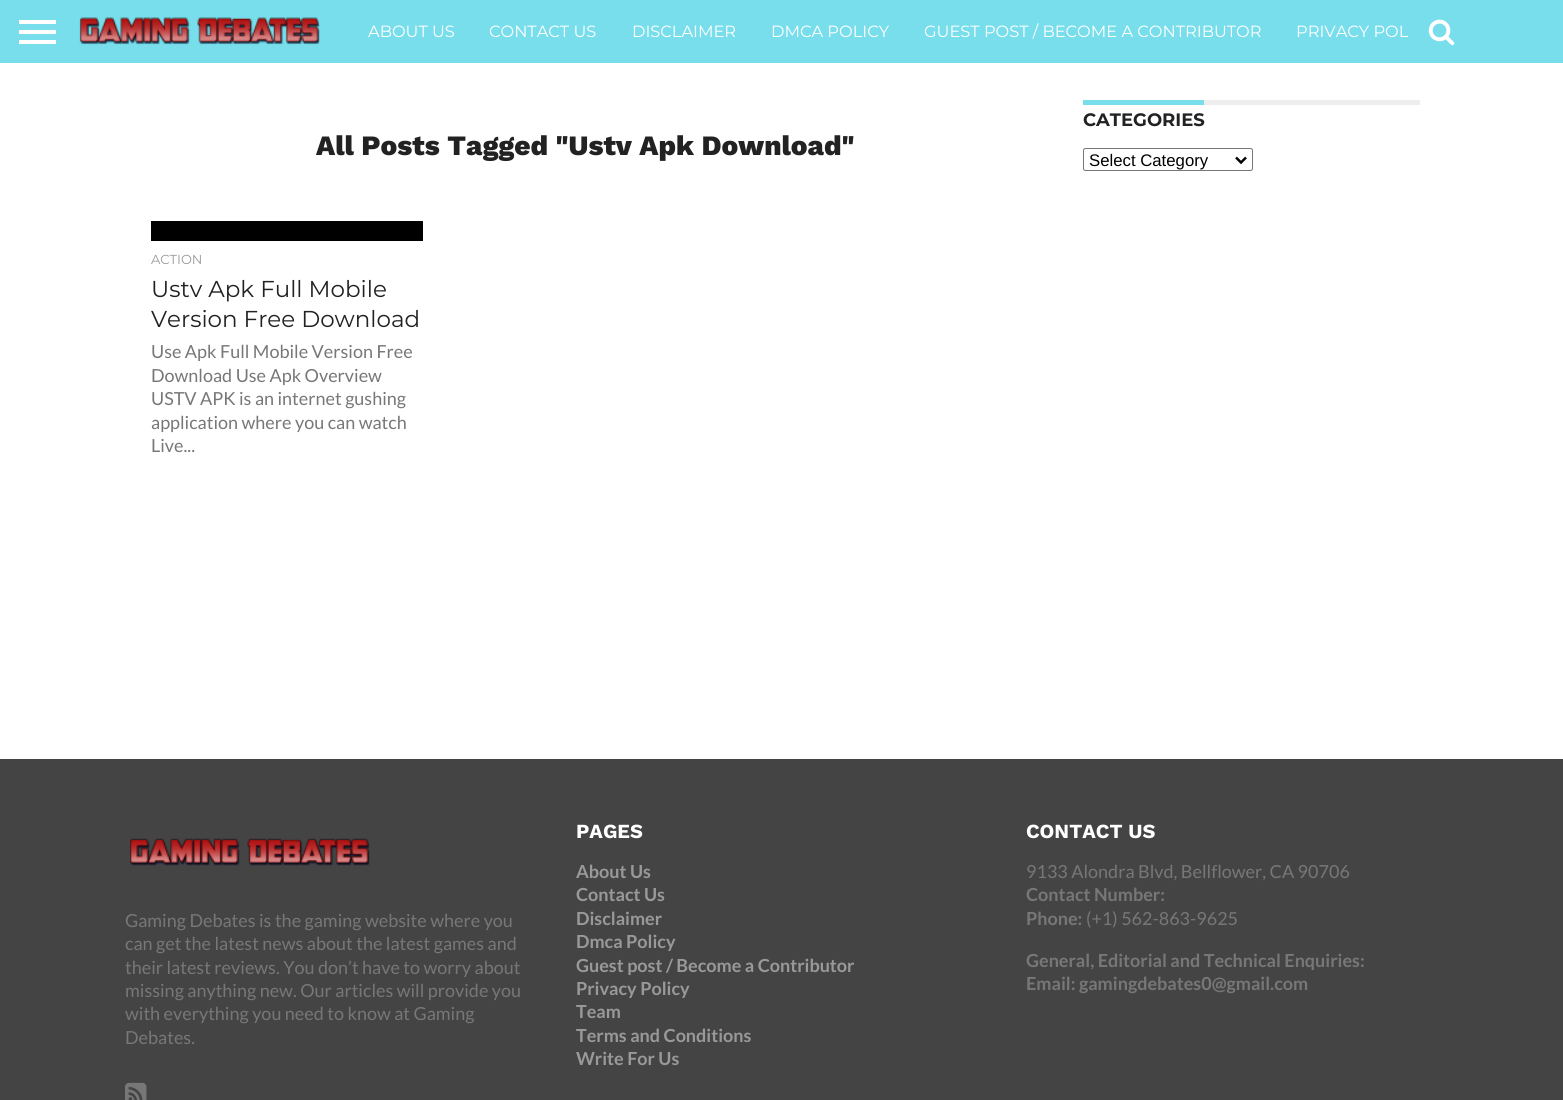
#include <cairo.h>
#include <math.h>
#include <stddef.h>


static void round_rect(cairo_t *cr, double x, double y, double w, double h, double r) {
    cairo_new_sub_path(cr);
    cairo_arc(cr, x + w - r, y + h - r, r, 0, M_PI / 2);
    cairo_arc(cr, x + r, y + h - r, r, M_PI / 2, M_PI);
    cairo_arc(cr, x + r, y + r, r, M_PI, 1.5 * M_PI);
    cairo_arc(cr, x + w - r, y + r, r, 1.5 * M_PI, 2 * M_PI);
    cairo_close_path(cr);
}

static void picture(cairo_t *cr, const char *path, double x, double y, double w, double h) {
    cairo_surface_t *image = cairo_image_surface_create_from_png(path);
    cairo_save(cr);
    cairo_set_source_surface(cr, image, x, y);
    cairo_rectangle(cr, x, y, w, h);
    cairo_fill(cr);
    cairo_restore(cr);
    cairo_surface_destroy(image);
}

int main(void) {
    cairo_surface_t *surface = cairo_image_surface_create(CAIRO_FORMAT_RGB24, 1563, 1100);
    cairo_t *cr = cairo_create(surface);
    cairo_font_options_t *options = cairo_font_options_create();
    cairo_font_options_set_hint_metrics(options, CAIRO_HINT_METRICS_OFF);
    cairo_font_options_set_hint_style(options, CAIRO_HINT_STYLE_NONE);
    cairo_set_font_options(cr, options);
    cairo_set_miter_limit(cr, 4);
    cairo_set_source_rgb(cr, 1, 1, 1);
    cairo_paint(cr);
    cairo_set_source_rgb(cr, 0.471, 0.871, 0.922);
    cairo_rectangle(cr, 0, 0, 1563, 63);
    cairo_fill(cr);
    cairo_set_source_rgb(cr, 1, 1, 1);
    cairo_rectangle(cr, 19, 20, 37, 4);
    cairo_fill(cr);
    cairo_rectangle(cr, 19, 30, 37, 4);
    cairo_fill(cr);
    cairo_rectangle(cr, 19, 40, 37, 4);
    cairo_fill(cr);
    picture(cr, "img1.png", 79, 17, 241, 28);
    cairo_select_font_face(cr, "Montserrat", CAIRO_FONT_SLANT_NORMAL, CAIRO_FONT_WEIGHT_NORMAL);
    cairo_set_font_size(cr, 16.25);
    cairo_move_to(cr, 368, 37);
    cairo_show_text(cr, "ABOUT US");
    cairo_move_to(cr, 489, 37);
    cairo_show_text(cr, "CONTACT US");
    cairo_move_to(cr, 632, 37);
    cairo_show_text(cr, "DISCLAIMER");
    cairo_move_to(cr, 771, 37);
    cairo_show_text(cr, "DMCA POLICY");
    cairo_move_to(cr, 924, 37);
    cairo_show_text(cr, "GUEST POST / BECOME A CONTRIBUTOR");
    cairo_move_to(cr, 1296, 37);
    cairo_show_text(cr, "PRIVACY POL");
    picture(cr, "img2.png", 1428, 19, 27, 27);
    cairo_select_font_face(cr, "Work Sans ExtraBold", CAIRO_FONT_SLANT_NORMAL, CAIRO_FONT_WEIGHT_NORMAL);
    cairo_set_font_size(cr, 28);
    cairo_set_source_rgb(cr, 0.133, 0.133, 0.133);
    cairo_move_to(cr, 316, 155);
    cairo_show_text(cr, "All Posts Tagged \"Ustv Apk Download\"");
    cairo_set_source_rgb(cr, 0, 0, 0);
    cairo_rectangle(cr, 151, 221, 272, 20);
    cairo_fill(cr);
    cairo_select_font_face(cr, "Montserrat", CAIRO_FONT_SLANT_NORMAL, CAIRO_FONT_WEIGHT_NORMAL);
    cairo_set_font_size(cr, 13);
    cairo_set_source_rgb(cr, 0.6, 0.6, 0.6);
    cairo_move_to(cr, 151, 264);
    cairo_show_text(cr, "ACTION");
    cairo_set_font_size(cr, 23);
    cairo_set_source_rgb(cr, 0.133, 0.133, 0.133);
    cairo_move_to(cr, 151, 297);
    cairo_show_text(cr, "Ustv Apk Full Mobile");
    cairo_move_to(cr, 151, 327);
    cairo_show_text(cr, "Version Free Download");
    cairo_select_font_face(cr, "Lato", CAIRO_FONT_SLANT_NORMAL, CAIRO_FONT_WEIGHT_NORMAL);
    cairo_set_font_size(cr, 18);
    cairo_set_source_rgb(cr, 0.467, 0.467, 0.467);
    cairo_move_to(cr, 151, 358);
    cairo_show_text(cr, "Use Apk Full Mobile Version Free");
    cairo_move_to(cr, 151, 382);
    cairo_show_text(cr, "Download Use Apk Overview");
    cairo_move_to(cr, 151, 405);
    cairo_show_text(cr, "USTV APK is an internet gushing");
    cairo_move_to(cr, 151, 429);
    cairo_show_text(cr, "application where you can watch");
    cairo_move_to(cr, 151, 452);
    cairo_show_text(cr, "Live...");
    cairo_set_source_rgb(cr, 0.933, 0.933, 0.933);
    cairo_rectangle(cr, 1204, 100, 216, 5);
    cairo_fill(cr);
    cairo_set_source_rgb(cr, 0.471, 0.871, 0.922);
    cairo_rectangle(cr, 1083, 100, 121, 5);
    cairo_fill(cr);
    cairo_select_font_face(cr, "Montserrat", CAIRO_FONT_SLANT_NORMAL, CAIRO_FONT_WEIGHT_BOLD);
    cairo_set_source_rgb(cr, 0.133, 0.133, 0.133);
    cairo_move_to(cr, 1083, 126);
    cairo_show_text(cr, "CATEGORIES");
    round_rect(cr, 1083.5, 148.5, 169, 22, 2);
    cairo_set_source_rgb(cr, 0.463, 0.463, 0.463);
    cairo_set_line_width(cr, 1);
    cairo_stroke(cr);
    cairo_new_path(cr);
    cairo_move_to(cr, 1236, 157.5);
    cairo_line_to(cr, 1241, 162.5);
    cairo_line_to(cr, 1246, 157.5);
    cairo_set_source_rgb(cr, 0, 0, 0);
    cairo_set_line_width(cr, 2.5);
    cairo_stroke(cr);
    cairo_select_font_face(cr, "Liberation Sans", CAIRO_FONT_SLANT_NORMAL, CAIRO_FONT_WEIGHT_NORMAL);
    cairo_set_font_size(cr, 16.75);
    cairo_move_to(cr, 1089, 166);
    cairo_show_text(cr, "Select Category");
    cairo_set_source_rgb(cr, 0.267, 0.267, 0.267);
    cairo_rectangle(cr, 0, 759, 1563, 341);
    cairo_fill(cr);
    picture(cr, "img3.png", 130, 838, 240, 28);
    cairo_select_font_face(cr, "Lato", CAIRO_FONT_SLANT_NORMAL, CAIRO_FONT_WEIGHT_NORMAL);
    cairo_set_font_size(cr, 18);
    cairo_set_source_rgb(cr, 0.467, 0.467, 0.467);
    cairo_move_to(cr, 125, 927);
    cairo_show_text(cr, "Gaming Debates is the gaming website where you");
    cairo_move_to(cr, 125, 950);
    cairo_show_text(cr, "can get the latest news about the latest games and");
    cairo_move_to(cr, 125, 974);
    cairo_show_text(cr, "their latest reviews. You don’t have to worry about");
    cairo_move_to(cr, 125, 997);
    cairo_show_text(cr, "missing anything new. Our articles will provide you");
    cairo_move_to(cr, 125, 1020);
    cairo_show_text(cr, "with everything you need to know at Gaming");
    cairo_move_to(cr, 125, 1044);
    cairo_show_text(cr, "Debates.");
    picture(cr, "img4.png", 125, 1082, 22, 18);
    cairo_select_font_face(cr, "Work Sans", CAIRO_FONT_SLANT_NORMAL, CAIRO_FONT_WEIGHT_BOLD);
    cairo_set_font_size(cr, 20);
    cairo_set_source_rgb(cr, 1, 1, 1);
    cairo_move_to(cr, 576, 838);
    cairo_show_text(cr, "PAGES");
    cairo_select_font_face(cr, "Lato", CAIRO_FONT_SLANT_NORMAL, CAIRO_FONT_WEIGHT_BOLD);
    cairo_set_font_size(cr, 18);
    cairo_set_source_rgb(cr, 0.6, 0.6, 0.6);
    cairo_move_to(cr, 576, 878);
    cairo_show_text(cr, "About Us");
    cairo_move_to(cr, 576, 901);
    cairo_show_text(cr, "Contact Us");
    cairo_move_to(cr, 576, 925);
    cairo_show_text(cr, "Disclaimer");
    cairo_move_to(cr, 576, 948);
    cairo_show_text(cr, "Dmca Policy");
    cairo_move_to(cr, 576, 972);
    cairo_show_text(cr, "Guest post / Become a Contributor");
    cairo_move_to(cr, 576, 995);
    cairo_show_text(cr, "Privacy Policy");
    cairo_move_to(cr, 576, 1018);
    cairo_show_text(cr, "Team");
    cairo_move_to(cr, 576, 1042);
    cairo_show_text(cr, "Terms and Conditions");
    cairo_move_to(cr, 576, 1065);
    cairo_show_text(cr, "Write For Us");
    cairo_select_font_face(cr, "Work Sans", CAIRO_FONT_SLANT_NORMAL, CAIRO_FONT_WEIGHT_BOLD);
    cairo_set_font_size(cr, 20);
    cairo_set_source_rgb(cr, 1, 1, 1);
    cairo_move_to(cr, 1026, 838);
    cairo_show_text(cr, "CONTACT US");
    cairo_select_font_face(cr, "Lato", CAIRO_FONT_SLANT_NORMAL, CAIRO_FONT_WEIGHT_NORMAL);
    cairo_set_font_size(cr, 18);
    cairo_set_source_rgb(cr, 0.467, 0.467, 0.467);
    cairo_move_to(cr, 1026, 878);
    cairo_show_text(cr, "9133 Alondra Blvd, Bellflower, CA 90706");
    cairo_select_font_face(cr, "Lato", CAIRO_FONT_SLANT_NORMAL, CAIRO_FONT_WEIGHT_BOLD);
    cairo_move_to(cr, 1026, 901);
    cairo_show_text(cr, "Contact Number:");
    cairo_move_to(cr, 1026, 925);
    cairo_show_text(cr, "Phone:");
    cairo_select_font_face(cr, "Lato", CAIRO_FONT_SLANT_NORMAL, CAIRO_FONT_WEIGHT_NORMAL);
    cairo_move_to(cr, 1086, 925);
    cairo_show_text(cr, "(+1) 562-863-9625");
    cairo_select_font_face(cr, "Lato", CAIRO_FONT_SLANT_NORMAL, CAIRO_FONT_WEIGHT_BOLD);
    cairo_move_to(cr, 1026, 967);
    cairo_show_text(cr, "General, Editorial and Technical Enquiries:");
    cairo_move_to(cr, 1026, 990);
    cairo_show_text(cr, "Email: gamingdebates0@gmail.com");
    cairo_surface_write_to_png(surface, "page.png");
    cairo_font_options_destroy(options);
    cairo_destroy(cr);
    cairo_surface_destroy(surface);
    return 0;
}
